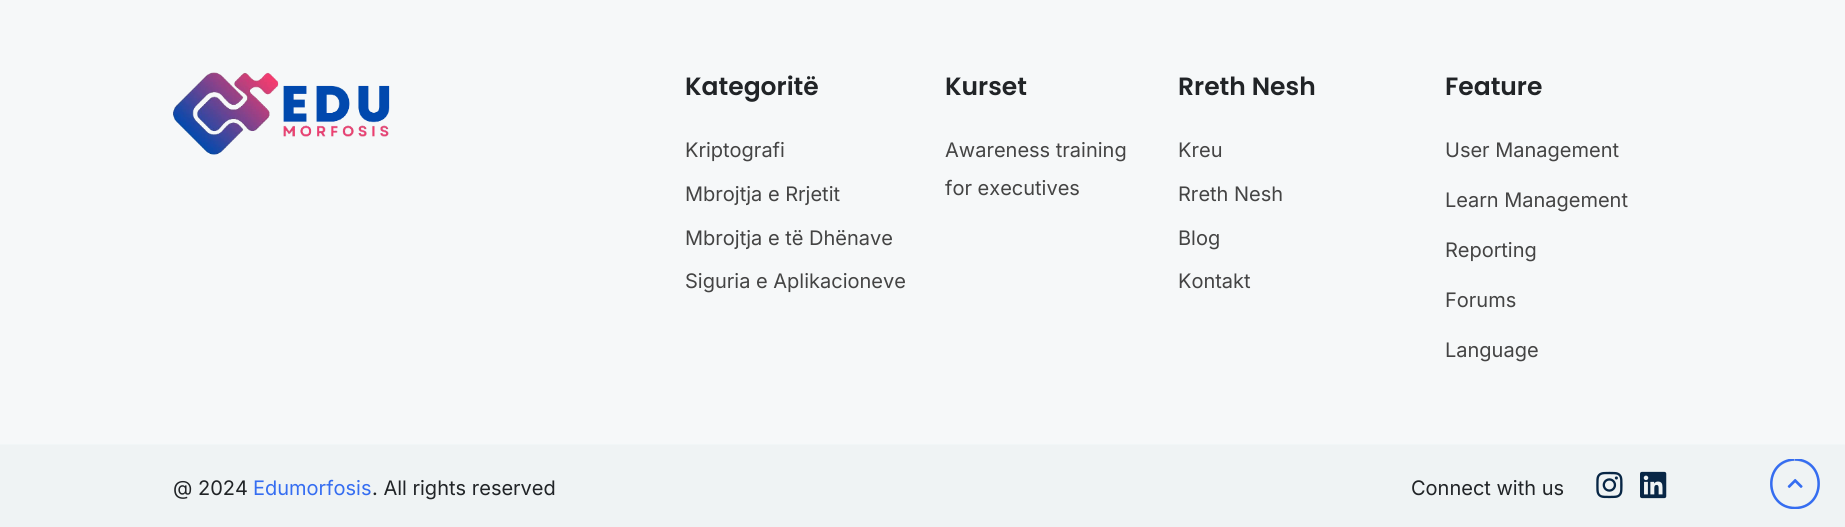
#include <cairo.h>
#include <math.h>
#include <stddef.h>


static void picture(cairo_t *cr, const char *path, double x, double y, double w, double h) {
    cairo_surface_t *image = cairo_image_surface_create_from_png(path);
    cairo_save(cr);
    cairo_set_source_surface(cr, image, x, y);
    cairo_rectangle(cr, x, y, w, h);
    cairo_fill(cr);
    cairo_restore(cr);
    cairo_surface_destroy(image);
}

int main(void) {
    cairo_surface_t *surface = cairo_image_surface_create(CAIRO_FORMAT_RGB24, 1845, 527);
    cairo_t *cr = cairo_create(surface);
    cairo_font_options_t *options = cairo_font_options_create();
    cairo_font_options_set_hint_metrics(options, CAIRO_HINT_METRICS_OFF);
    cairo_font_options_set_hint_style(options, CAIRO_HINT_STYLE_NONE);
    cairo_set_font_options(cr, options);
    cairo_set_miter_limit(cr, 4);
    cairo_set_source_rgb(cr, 0.961, 0.969, 0.973);
    cairo_paint(cr);
    picture(cr, "img1.png", 173, 72, 217, 83);
    cairo_select_font_face(cr, "Poppins SemiBold", CAIRO_FONT_SLANT_NORMAL, CAIRO_FONT_WEIGHT_NORMAL);
    cairo_set_font_size(cr, 25);
    cairo_set_source_rgb(cr, 0.129, 0.141, 0.153);
    cairo_move_to(cr, 685, 95);
    cairo_show_text(cr, "Kategoritë");
    cairo_select_font_face(cr, "Inter", CAIRO_FONT_SLANT_NORMAL, CAIRO_FONT_WEIGHT_NORMAL);
    cairo_set_font_size(cr, 20);
    cairo_set_source_rgb(cr, 0.267, 0.267, 0.267);
    cairo_move_to(cr, 685, 157);
    cairo_show_text(cr, "Kriptografi");
    cairo_move_to(cr, 685, 201);
    cairo_show_text(cr, "Mbrojtja e Rrjetit");
    cairo_move_to(cr, 685, 245);
    cairo_show_text(cr, "Mbrojtja e të Dhënave");
    cairo_move_to(cr, 685, 288);
    cairo_show_text(cr, "Siguria e Aplikacioneve");
    cairo_select_font_face(cr, "Poppins SemiBold", CAIRO_FONT_SLANT_NORMAL, CAIRO_FONT_WEIGHT_NORMAL);
    cairo_set_font_size(cr, 25);
    cairo_set_source_rgb(cr, 0.129, 0.141, 0.153);
    cairo_move_to(cr, 945, 95);
    cairo_show_text(cr, "Kurset");
    cairo_select_font_face(cr, "Inter", CAIRO_FONT_SLANT_NORMAL, CAIRO_FONT_WEIGHT_NORMAL);
    cairo_set_font_size(cr, 20);
    cairo_set_source_rgb(cr, 0.267, 0.267, 0.267);
    cairo_move_to(cr, 945, 157);
    cairo_show_text(cr, "Awareness training");
    cairo_move_to(cr, 945, 195);
    cairo_show_text(cr, "for executives");
    cairo_select_font_face(cr, "Poppins SemiBold", CAIRO_FONT_SLANT_NORMAL, CAIRO_FONT_WEIGHT_NORMAL);
    cairo_set_font_size(cr, 25);
    cairo_set_source_rgb(cr, 0.129, 0.141, 0.153);
    cairo_move_to(cr, 1178, 95);
    cairo_show_text(cr, "Rreth Nesh");
    cairo_select_font_face(cr, "Inter", CAIRO_FONT_SLANT_NORMAL, CAIRO_FONT_WEIGHT_NORMAL);
    cairo_set_font_size(cr, 20);
    cairo_set_source_rgb(cr, 0.267, 0.267, 0.267);
    cairo_move_to(cr, 1178, 157);
    cairo_show_text(cr, "Kreu");
    cairo_move_to(cr, 1178, 201);
    cairo_show_text(cr, "Rreth Nesh");
    cairo_move_to(cr, 1178, 245);
    cairo_show_text(cr, "Blog");
    cairo_move_to(cr, 1178, 288);
    cairo_show_text(cr, "Kontakt");
    cairo_select_font_face(cr, "Poppins SemiBold", CAIRO_FONT_SLANT_NORMAL, CAIRO_FONT_WEIGHT_NORMAL);
    cairo_set_font_size(cr, 25);
    cairo_set_source_rgb(cr, 0.129, 0.141, 0.153);
    cairo_move_to(cr, 1445, 95);
    cairo_show_text(cr, "Feature");
    cairo_select_font_face(cr, "Inter", CAIRO_FONT_SLANT_NORMAL, CAIRO_FONT_WEIGHT_NORMAL);
    cairo_set_font_size(cr, 20);
    cairo_set_source_rgb(cr, 0.267, 0.267, 0.267);
    cairo_move_to(cr, 1445, 157);
    cairo_show_text(cr, "User Management");
    cairo_move_to(cr, 1445, 207);
    cairo_show_text(cr, "Learn Management");
    cairo_move_to(cr, 1445, 257);
    cairo_show_text(cr, "Reporting");
    cairo_move_to(cr, 1445, 307);
    cairo_show_text(cr, "Forums");
    cairo_move_to(cr, 1445, 357);
    cairo_show_text(cr, "Language");
    cairo_set_source_rgb(cr, 0.937, 0.953, 0.957);
    cairo_rectangle(cr, 0, 445, 1845, 82);
    cairo_fill(cr);
    cairo_set_source_rgb(cr, 0.945, 0.961, 0.965);
    cairo_rectangle(cr, 0, 444, 1845, 1);
    cairo_fill(cr);
    cairo_set_source_rgb(cr, 0.129, 0.141, 0.153);
    cairo_move_to(cr, 173, 495);
    cairo_show_text(cr, "@ 2024");
    cairo_set_source_rgb(cr, 0.208, 0.427, 0.945);
    cairo_move_to(cr, 253, 495);
    cairo_show_text(cr, "Edumorfosis");
    cairo_set_source_rgb(cr, 0.129, 0.141, 0.153);
    cairo_move_to(cr, 372, 495);
    cairo_show_text(cr, ". All rights reserved");
    cairo_move_to(cr, 1411, 495);
    cairo_show_text(cr, "Connect with us");
    picture(cr, "img2.png", 1596, 471, 27, 28);
    picture(cr, "img3.png", 1640, 471, 27, 28);
    cairo_arc(cr, 1795, 484, 24, 0, 2 * M_PI);
    cairo_set_source_rgb(cr, 0.827, 0.843, 0.851);
    cairo_stroke(cr);
    cairo_save(cr);
    cairo_rectangle(cr, 1770, 459, 50, 50);
    cairo_clip(cr);
    cairo_new_path(cr);
    cairo_move_to(cr, 1795, 459.5);
    cairo_curve_to(cr, 1826.5, 459.5, 1826.5, 508, 1795, 508);
    cairo_curve_to(cr, 1764, 508, 1763, 460.5, 1794.5, 459.5);
    cairo_set_source_rgb(cr, 0.208, 0.427, 0.945);
    cairo_set_line_width(cr, 2.5);
    cairo_stroke(cr);
    cairo_restore(cr);
    picture(cr, "img4.png", 1787, 478, 16, 10);
    cairo_surface_write_to_png(surface, "page.png");
    cairo_font_options_destroy(options);
    cairo_destroy(cr);
    cairo_surface_destroy(surface);
    return 0;
}
